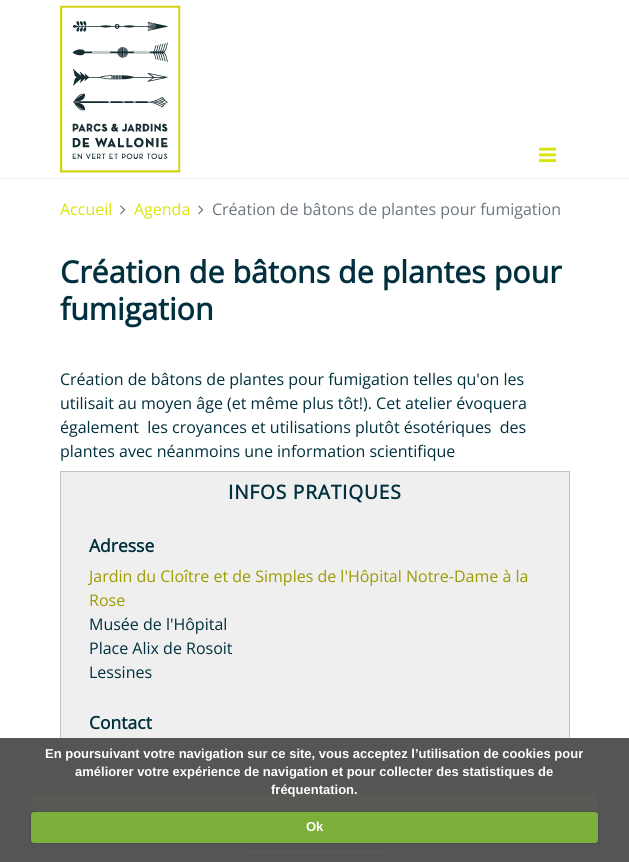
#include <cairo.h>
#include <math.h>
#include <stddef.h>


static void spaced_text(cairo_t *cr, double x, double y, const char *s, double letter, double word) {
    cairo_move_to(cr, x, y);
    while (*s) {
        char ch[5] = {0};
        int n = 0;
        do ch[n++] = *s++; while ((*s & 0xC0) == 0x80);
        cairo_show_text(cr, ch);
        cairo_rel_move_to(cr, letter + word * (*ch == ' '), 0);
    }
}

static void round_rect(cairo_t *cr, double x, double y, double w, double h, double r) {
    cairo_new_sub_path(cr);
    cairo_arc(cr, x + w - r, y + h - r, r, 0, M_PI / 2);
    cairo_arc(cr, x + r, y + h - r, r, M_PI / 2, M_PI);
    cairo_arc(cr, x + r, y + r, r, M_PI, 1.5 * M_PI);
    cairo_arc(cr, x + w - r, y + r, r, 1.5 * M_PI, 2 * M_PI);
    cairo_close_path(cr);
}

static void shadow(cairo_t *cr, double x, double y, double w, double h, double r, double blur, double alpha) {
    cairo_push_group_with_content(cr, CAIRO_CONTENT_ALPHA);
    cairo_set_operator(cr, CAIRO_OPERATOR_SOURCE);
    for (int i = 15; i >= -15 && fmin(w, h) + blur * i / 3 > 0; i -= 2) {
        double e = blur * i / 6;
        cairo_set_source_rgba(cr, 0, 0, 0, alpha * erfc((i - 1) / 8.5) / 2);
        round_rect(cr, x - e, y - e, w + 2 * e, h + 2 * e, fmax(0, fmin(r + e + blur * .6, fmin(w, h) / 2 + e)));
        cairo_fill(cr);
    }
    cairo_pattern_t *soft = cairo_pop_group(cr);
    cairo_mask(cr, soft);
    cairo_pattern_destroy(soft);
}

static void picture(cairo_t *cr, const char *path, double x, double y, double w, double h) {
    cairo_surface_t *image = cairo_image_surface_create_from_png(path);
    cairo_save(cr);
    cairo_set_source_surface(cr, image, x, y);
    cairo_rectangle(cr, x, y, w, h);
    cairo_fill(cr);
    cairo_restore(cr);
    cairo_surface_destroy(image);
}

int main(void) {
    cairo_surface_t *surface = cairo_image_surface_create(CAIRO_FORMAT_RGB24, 629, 862);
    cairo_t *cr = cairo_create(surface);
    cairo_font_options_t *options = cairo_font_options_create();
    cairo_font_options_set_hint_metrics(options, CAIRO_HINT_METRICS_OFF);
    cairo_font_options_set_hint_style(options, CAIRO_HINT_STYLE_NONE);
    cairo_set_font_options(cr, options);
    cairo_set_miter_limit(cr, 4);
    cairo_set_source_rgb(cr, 1, 1, 1);
    cairo_paint(cr);
    cairo_set_source_rgb(cr, 0.937, 0.937, 0.937);
    cairo_rectangle(cr, 0, 178, 629, 1);
    cairo_fill(cr);
    picture(cr, "img1.png", 60, 5, 121, 168);
    picture(cr, "img2.png", 539, 147, 18, 15);
    cairo_select_font_face(cr, "Open Sans", CAIRO_FONT_SLANT_NORMAL, CAIRO_FONT_WEIGHT_NORMAL);
    cairo_set_font_size(cr, 16);
    cairo_set_source_rgb(cr, 0.851, 0.898, 0.024);
    cairo_move_to(cr, 60, 215);
    cairo_show_text(cr, "Accueil");
    picture(cr, "img3.png", 120, 205, 6, 10);
    cairo_move_to(cr, 134, 215);
    cairo_show_text(cr, "Agenda");
    picture(cr, "img3.png", 198, 205, 6, 10);
    cairo_set_source_rgb(cr, 0.424, 0.459, 0.49);
    cairo_move_to(cr, 212, 215);
    cairo_show_text(cr, "Création de bâtons de plantes pour fumigation");
    cairo_select_font_face(cr, "Open Sans", CAIRO_FONT_SLANT_NORMAL, CAIRO_FONT_WEIGHT_BOLD);
    cairo_set_font_size(cr, 30.4);
    cairo_set_source_rgb(cr, 0, 0.188, 0.239);
    cairo_move_to(cr, 60, 283);
    cairo_show_text(cr, "Création de bâtons de plantes pour");
    cairo_move_to(cr, 60, 320);
    cairo_show_text(cr, "fumigation");
    cairo_select_font_face(cr, "Open Sans", CAIRO_FONT_SLANT_NORMAL, CAIRO_FONT_WEIGHT_NORMAL);
    cairo_set_font_size(cr, 16);
    cairo_move_to(cr, 60, 385);
    cairo_show_text(cr, "Création de bâtons de plantes pour fumigation telles qu'on les");
    cairo_move_to(cr, 60, 409);
    cairo_show_text(cr, "utilisait au moyen âge (et même plus tôt!). Cet atelier évoquera");
    cairo_move_to(cr, 60, 433);
    cairo_show_text(cr, "également  les croyances et utilisations plutôt ésotériques  des");
    cairo_move_to(cr, 60, 457);
    cairo_show_text(cr, "plantes avec néanmoins une information scientifique");
    cairo_set_source_rgb(cr, 0.937, 0.937, 0.937);
    cairo_rectangle(cr, 60.5, 471.5, 509, 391);
    cairo_fill_preserve(cr);
    cairo_set_source_rgb(cr, 0.765, 0.765, 0.765);
    cairo_set_line_width(cr, 1);
    cairo_stroke(cr);
    cairo_select_font_face(cr, "Open Sans", CAIRO_FONT_SLANT_NORMAL, CAIRO_FONT_WEIGHT_BOLD);
    cairo_set_font_size(cr, 19.25);
    cairo_set_source_rgb(cr, 0, 0.188, 0.239);
    spaced_text(cr, 228, 499, "INFOS PRATIQUES", 0.75, 0);
    cairo_set_font_size(cr, 17.5);
    cairo_move_to(cr, 89, 552);
    cairo_show_text(cr, "Adresse");
    cairo_select_font_face(cr, "Open Sans", CAIRO_FONT_SLANT_NORMAL, CAIRO_FONT_WEIGHT_NORMAL);
    cairo_set_font_size(cr, 16);
    cairo_set_source_rgb(cr, 0.612, 0.604, 0);
    cairo_move_to(cr, 89, 582);
    cairo_show_text(cr, "Jardin du Cloître et de Simples de l'Hôpital Notre-Dame à la");
    cairo_move_to(cr, 89, 606);
    cairo_show_text(cr, "Rose");
    cairo_set_source_rgb(cr, 0, 0.188, 0.239);
    cairo_move_to(cr, 89, 630);
    cairo_show_text(cr, "Musée de l'Hôpital");
    cairo_move_to(cr, 89, 654);
    cairo_show_text(cr, "Place Alix de Rosoit");
    cairo_move_to(cr, 89, 678);
    cairo_show_text(cr, "Lessines");
    cairo_select_font_face(cr, "Open Sans", CAIRO_FONT_SLANT_NORMAL, CAIRO_FONT_WEIGHT_BOLD);
    cairo_set_font_size(cr, 17.5);
    cairo_move_to(cr, 89, 729);
    cairo_show_text(cr, "Contact");
    picture(cr, "img4.png", 92, 745, 12, 12);
    picture(cr, "img5.png", 91, 769, 15, 12);
    picture(cr, "img6.png", 93, 791, 10, 3);
    cairo_set_source_rgba(cr, 0.337, 0.337, 0.337, 0.95);
    cairo_rectangle(cr, 0, 738, 629, 124);
    cairo_fill(cr);
    cairo_set_source_rgb(cr, 0, 0, 0);
    shadow(cr, 31, 794, 567, 31, 3, 1, 0.25);
    cairo_set_source_rgb(cr, 0.49, 0.686, 0.231);
    round_rect(cr, 31, 794, 567, 31, 3);
    cairo_fill(cr);
    cairo_set_source_rgb(cr, 1, 1, 1);
    cairo_rectangle(cr, 246, 852, 138, 1);
    cairo_fill(cr);
    cairo_set_source_rgba(cr, 0.337, 0.337, 0.337, 0.95);
    cairo_rectangle(cr, 0, 738, 629, 124);
    cairo_fill(cr);
    cairo_select_font_face(cr, "Liberation Sans", CAIRO_FONT_SLANT_NORMAL, CAIRO_FONT_WEIGHT_BOLD);
    cairo_set_font_size(cr, 13);
    cairo_set_source_rgb(cr, 1, 1, 1);
    cairo_move_to(cr, 45, 758);
    cairo_show_text(cr, "En poursuivant votre navigation sur ce site, vous acceptez l’utilisation de cookies pour");
    cairo_move_to(cr, 75, 776);
    cairo_show_text(cr, "améliorer votre expérience de navigation et pour collecter des statistiques de");
    cairo_move_to(cr, 271, 794);
    cairo_show_text(cr, "fréquentation.");
    cairo_set_source_rgb(cr, 0, 0, 0);
    shadow(cr, 31, 812, 567, 31, 3, 1, 0.25);
    cairo_set_source_rgb(cr, 0.49, 0.686, 0.231);
    round_rect(cr, 31, 812, 567, 31, 3);
    cairo_fill(cr);
    cairo_set_source_rgb(cr, 1, 1, 1);
    cairo_move_to(cr, 306, 831);
    cairo_show_text(cr, "Ok");
    cairo_surface_write_to_png(surface, "page.png");
    cairo_font_options_destroy(options);
    cairo_destroy(cr);
    cairo_surface_destroy(surface);
    return 0;
}
